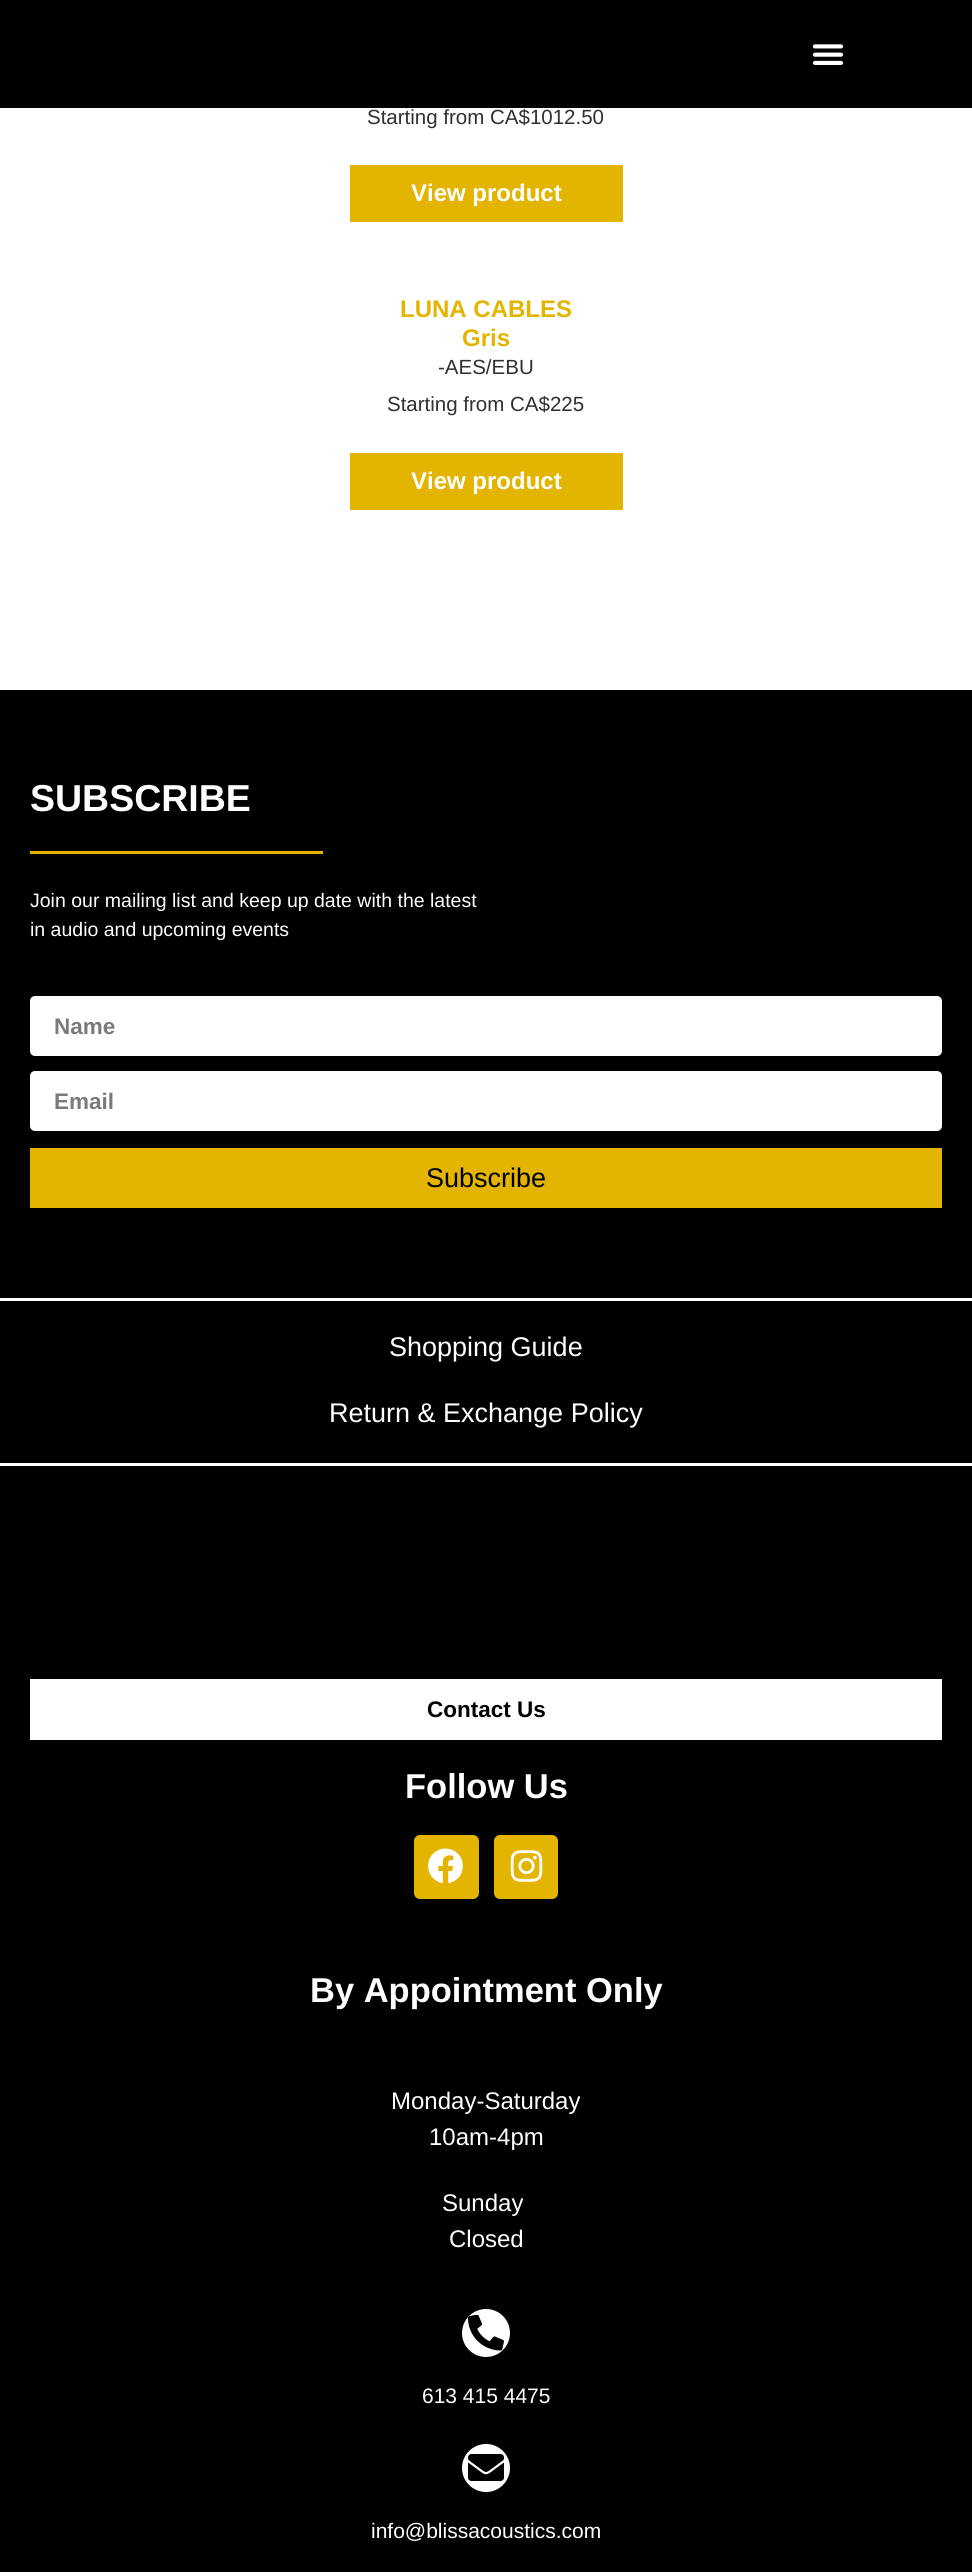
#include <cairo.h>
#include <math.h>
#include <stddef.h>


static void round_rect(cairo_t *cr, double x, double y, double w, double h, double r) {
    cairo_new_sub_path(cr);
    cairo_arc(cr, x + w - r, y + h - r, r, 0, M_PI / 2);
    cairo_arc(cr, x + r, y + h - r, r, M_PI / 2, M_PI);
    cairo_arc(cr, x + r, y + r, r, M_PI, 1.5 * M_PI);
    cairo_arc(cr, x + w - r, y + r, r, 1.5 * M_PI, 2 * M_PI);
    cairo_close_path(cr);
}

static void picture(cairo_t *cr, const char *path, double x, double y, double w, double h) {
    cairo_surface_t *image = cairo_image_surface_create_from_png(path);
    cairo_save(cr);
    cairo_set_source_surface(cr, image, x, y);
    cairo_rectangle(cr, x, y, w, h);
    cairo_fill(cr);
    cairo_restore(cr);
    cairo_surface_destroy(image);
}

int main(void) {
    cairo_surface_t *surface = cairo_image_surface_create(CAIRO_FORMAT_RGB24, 972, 2572);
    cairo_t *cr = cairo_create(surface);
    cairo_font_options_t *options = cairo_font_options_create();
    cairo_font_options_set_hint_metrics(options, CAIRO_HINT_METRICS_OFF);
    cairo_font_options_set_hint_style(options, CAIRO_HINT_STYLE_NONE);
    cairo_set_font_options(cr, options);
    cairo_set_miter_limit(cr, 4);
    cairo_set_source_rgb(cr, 1, 1, 1);
    cairo_paint(cr);
    cairo_set_source_rgb(cr, 0, 0, 0);
    cairo_rectangle(cr, 0, 0, 972, 108);
    cairo_fill(cr);
    picture(cr, "img1.png", 812, 44, 32, 21);
    cairo_select_font_face(cr, "Liberation Sans", CAIRO_FONT_SLANT_NORMAL, CAIRO_FONT_WEIGHT_NORMAL);
    cairo_set_font_size(cr, 20.5);
    cairo_set_source_rgb(cr, 0.188, 0.188, 0.188);
    cairo_move_to(cr, 367, 124);
    cairo_show_text(cr, "Starting from CA$1012.50");
    cairo_set_source_rgb(cr, 0.89, 0.706, 0);
    cairo_rectangle(cr, 350, 165, 273, 57);
    cairo_fill(cr);
    cairo_select_font_face(cr, "Liberation Sans", CAIRO_FONT_SLANT_NORMAL, CAIRO_FONT_WEIGHT_BOLD);
    cairo_set_font_size(cr, 24);
    cairo_set_source_rgb(cr, 1, 1, 1);
    cairo_move_to(cr, 411, 201);
    cairo_show_text(cr, "View product");
    cairo_set_source_rgb(cr, 0.89, 0.706, 0);
    cairo_move_to(cr, 400, 317);
    cairo_show_text(cr, "LUNA CABLES");
    cairo_move_to(cr, 462, 346);
    cairo_show_text(cr, "Gris");
    cairo_select_font_face(cr, "Liberation Sans", CAIRO_FONT_SLANT_NORMAL, CAIRO_FONT_WEIGHT_NORMAL);
    cairo_set_font_size(cr, 20.5);
    cairo_set_source_rgb(cr, 0.188, 0.188, 0.188);
    cairo_move_to(cr, 438, 374);
    cairo_show_text(cr, "-AES/EBU");
    cairo_move_to(cr, 387, 411);
    cairo_show_text(cr, "Starting from CA$225");
    cairo_set_source_rgb(cr, 0.89, 0.706, 0);
    cairo_rectangle(cr, 350, 453, 273, 57);
    cairo_fill(cr);
    cairo_select_font_face(cr, "Liberation Sans", CAIRO_FONT_SLANT_NORMAL, CAIRO_FONT_WEIGHT_BOLD);
    cairo_set_font_size(cr, 24);
    cairo_set_source_rgb(cr, 1, 1, 1);
    cairo_move_to(cr, 411, 489);
    cairo_show_text(cr, "View product");
    cairo_set_source_rgb(cr, 0, 0, 0);
    cairo_rectangle(cr, 0, 690, 972, 608);
    cairo_fill(cr);
    cairo_set_font_size(cr, 37.5);
    cairo_set_source_rgb(cr, 1, 1, 1);
    cairo_move_to(cr, 30, 811);
    cairo_show_text(cr, "SUBSCRIBE");
    cairo_set_source_rgb(cr, 0.89, 0.706, 0);
    cairo_rectangle(cr, 30, 851, 293, 3);
    cairo_fill(cr);
    cairo_select_font_face(cr, "Liberation Sans", CAIRO_FONT_SLANT_NORMAL, CAIRO_FONT_WEIGHT_NORMAL);
    cairo_set_font_size(cr, 19.5);
    cairo_set_source_rgb(cr, 1, 1, 1);
    cairo_move_to(cr, 30, 907);
    cairo_show_text(cr, "Join our mailing list and keep up date with the latest");
    cairo_move_to(cr, 30, 936);
    cairo_show_text(cr, "in audio and upcoming events");
    round_rect(cr, 30, 996, 912, 60, 5);
    cairo_fill(cr);
    cairo_select_font_face(cr, "Liberation Sans", CAIRO_FONT_SLANT_NORMAL, CAIRO_FONT_WEIGHT_BOLD);
    cairo_set_font_size(cr, 22.5);
    cairo_set_source_rgb(cr, 0.475, 0.478, 0.486);
    cairo_move_to(cr, 54, 1034);
    cairo_show_text(cr, "Name");
    cairo_set_source_rgb(cr, 1, 1, 1);
    round_rect(cr, 30, 1071, 912, 60, 5);
    cairo_fill(cr);
    cairo_set_source_rgb(cr, 0.475, 0.478, 0.486);
    cairo_move_to(cr, 54, 1109);
    cairo_show_text(cr, "Email");
    cairo_set_source_rgb(cr, 0.89, 0.706, 0);
    cairo_rectangle(cr, 30, 1148, 912, 60);
    cairo_fill(cr);
    cairo_select_font_face(cr, "Liberation Sans", CAIRO_FONT_SLANT_NORMAL, CAIRO_FONT_WEIGHT_NORMAL);
    cairo_set_font_size(cr, 27);
    cairo_set_source_rgb(cr, 0, 0, 0);
    cairo_move_to(cr, 426, 1187);
    cairo_show_text(cr, "Subscribe");
    cairo_rectangle(cr, 0, 1301, 972, 162);
    cairo_fill(cr);
    cairo_set_source_rgb(cr, 1, 1, 1);
    cairo_move_to(cr, 389, 1356);
    cairo_show_text(cr, "Shopping Guide");
    cairo_move_to(cr, 329, 1422);
    cairo_show_text(cr, "Return & Exchange Policy");
    cairo_set_source_rgb(cr, 0, 0, 0);
    cairo_rectangle(cr, 0, 1466, 972, 1106);
    cairo_fill(cr);
    cairo_set_source_rgb(cr, 1, 1, 1);
    cairo_rectangle(cr, 30, 1679, 912, 61);
    cairo_fill(cr);
    cairo_select_font_face(cr, "Liberation Sans", CAIRO_FONT_SLANT_NORMAL, CAIRO_FONT_WEIGHT_BOLD);
    cairo_set_font_size(cr, 22.5);
    cairo_set_source_rgb(cr, 0, 0, 0);
    cairo_move_to(cr, 427, 1717);
    cairo_show_text(cr, "Contact Us");
    cairo_set_font_size(cr, 34.5);
    cairo_set_source_rgb(cr, 1, 1, 1);
    cairo_move_to(cr, 405, 1798);
    cairo_show_text(cr, "Follow Us");
    cairo_set_source_rgb(cr, 0.89, 0.706, 0);
    round_rect(cr, 414, 1835, 65, 64, 6);
    cairo_fill(cr);
    picture(cr, "img2.png", 428, 1848, 35, 36);
    round_rect(cr, 494, 1835, 64, 64, 6);
    cairo_fill(cr);
    picture(cr, "img3.png", 510, 1850, 33, 32);
    cairo_set_source_rgb(cr, 1, 1, 1);
    cairo_move_to(cr, 310, 2002);
    cairo_show_text(cr, "By Appointment Only");
    cairo_select_font_face(cr, "Liberation Sans", CAIRO_FONT_SLANT_NORMAL, CAIRO_FONT_WEIGHT_NORMAL);
    cairo_set_font_size(cr, 24);
    cairo_move_to(cr, 391, 2109);
    cairo_show_text(cr, "Monday-Saturday");
    cairo_move_to(cr, 429, 2145);
    cairo_show_text(cr, "10am-4pm");
    cairo_move_to(cr, 442, 2211);
    cairo_show_text(cr, "Sunday");
    cairo_move_to(cr, 449, 2247);
    cairo_show_text(cr, "Closed");
    cairo_new_path(cr);
    cairo_arc(cr, 486, 2333, 24, 0, 2 * M_PI);
    cairo_fill(cr);
    picture(cr, "img4.png", 468, 2315, 36, 36);
    cairo_set_font_size(cr, 21);
    cairo_move_to(cr, 422, 2403);
    cairo_show_text(cr, "613 415 4475");
    cairo_new_path(cr);
    cairo_arc(cr, 486, 2468, 24, 0, 2 * M_PI);
    cairo_fill(cr);
    picture(cr, "img5.png", 468, 2454, 36, 27);
    cairo_move_to(cr, 371, 2538);
    cairo_show_text(cr, "info@blissacoustics.com");
    cairo_surface_write_to_png(surface, "page.png");
    cairo_font_options_destroy(options);
    cairo_destroy(cr);
    cairo_surface_destroy(surface);
    return 0;
}
